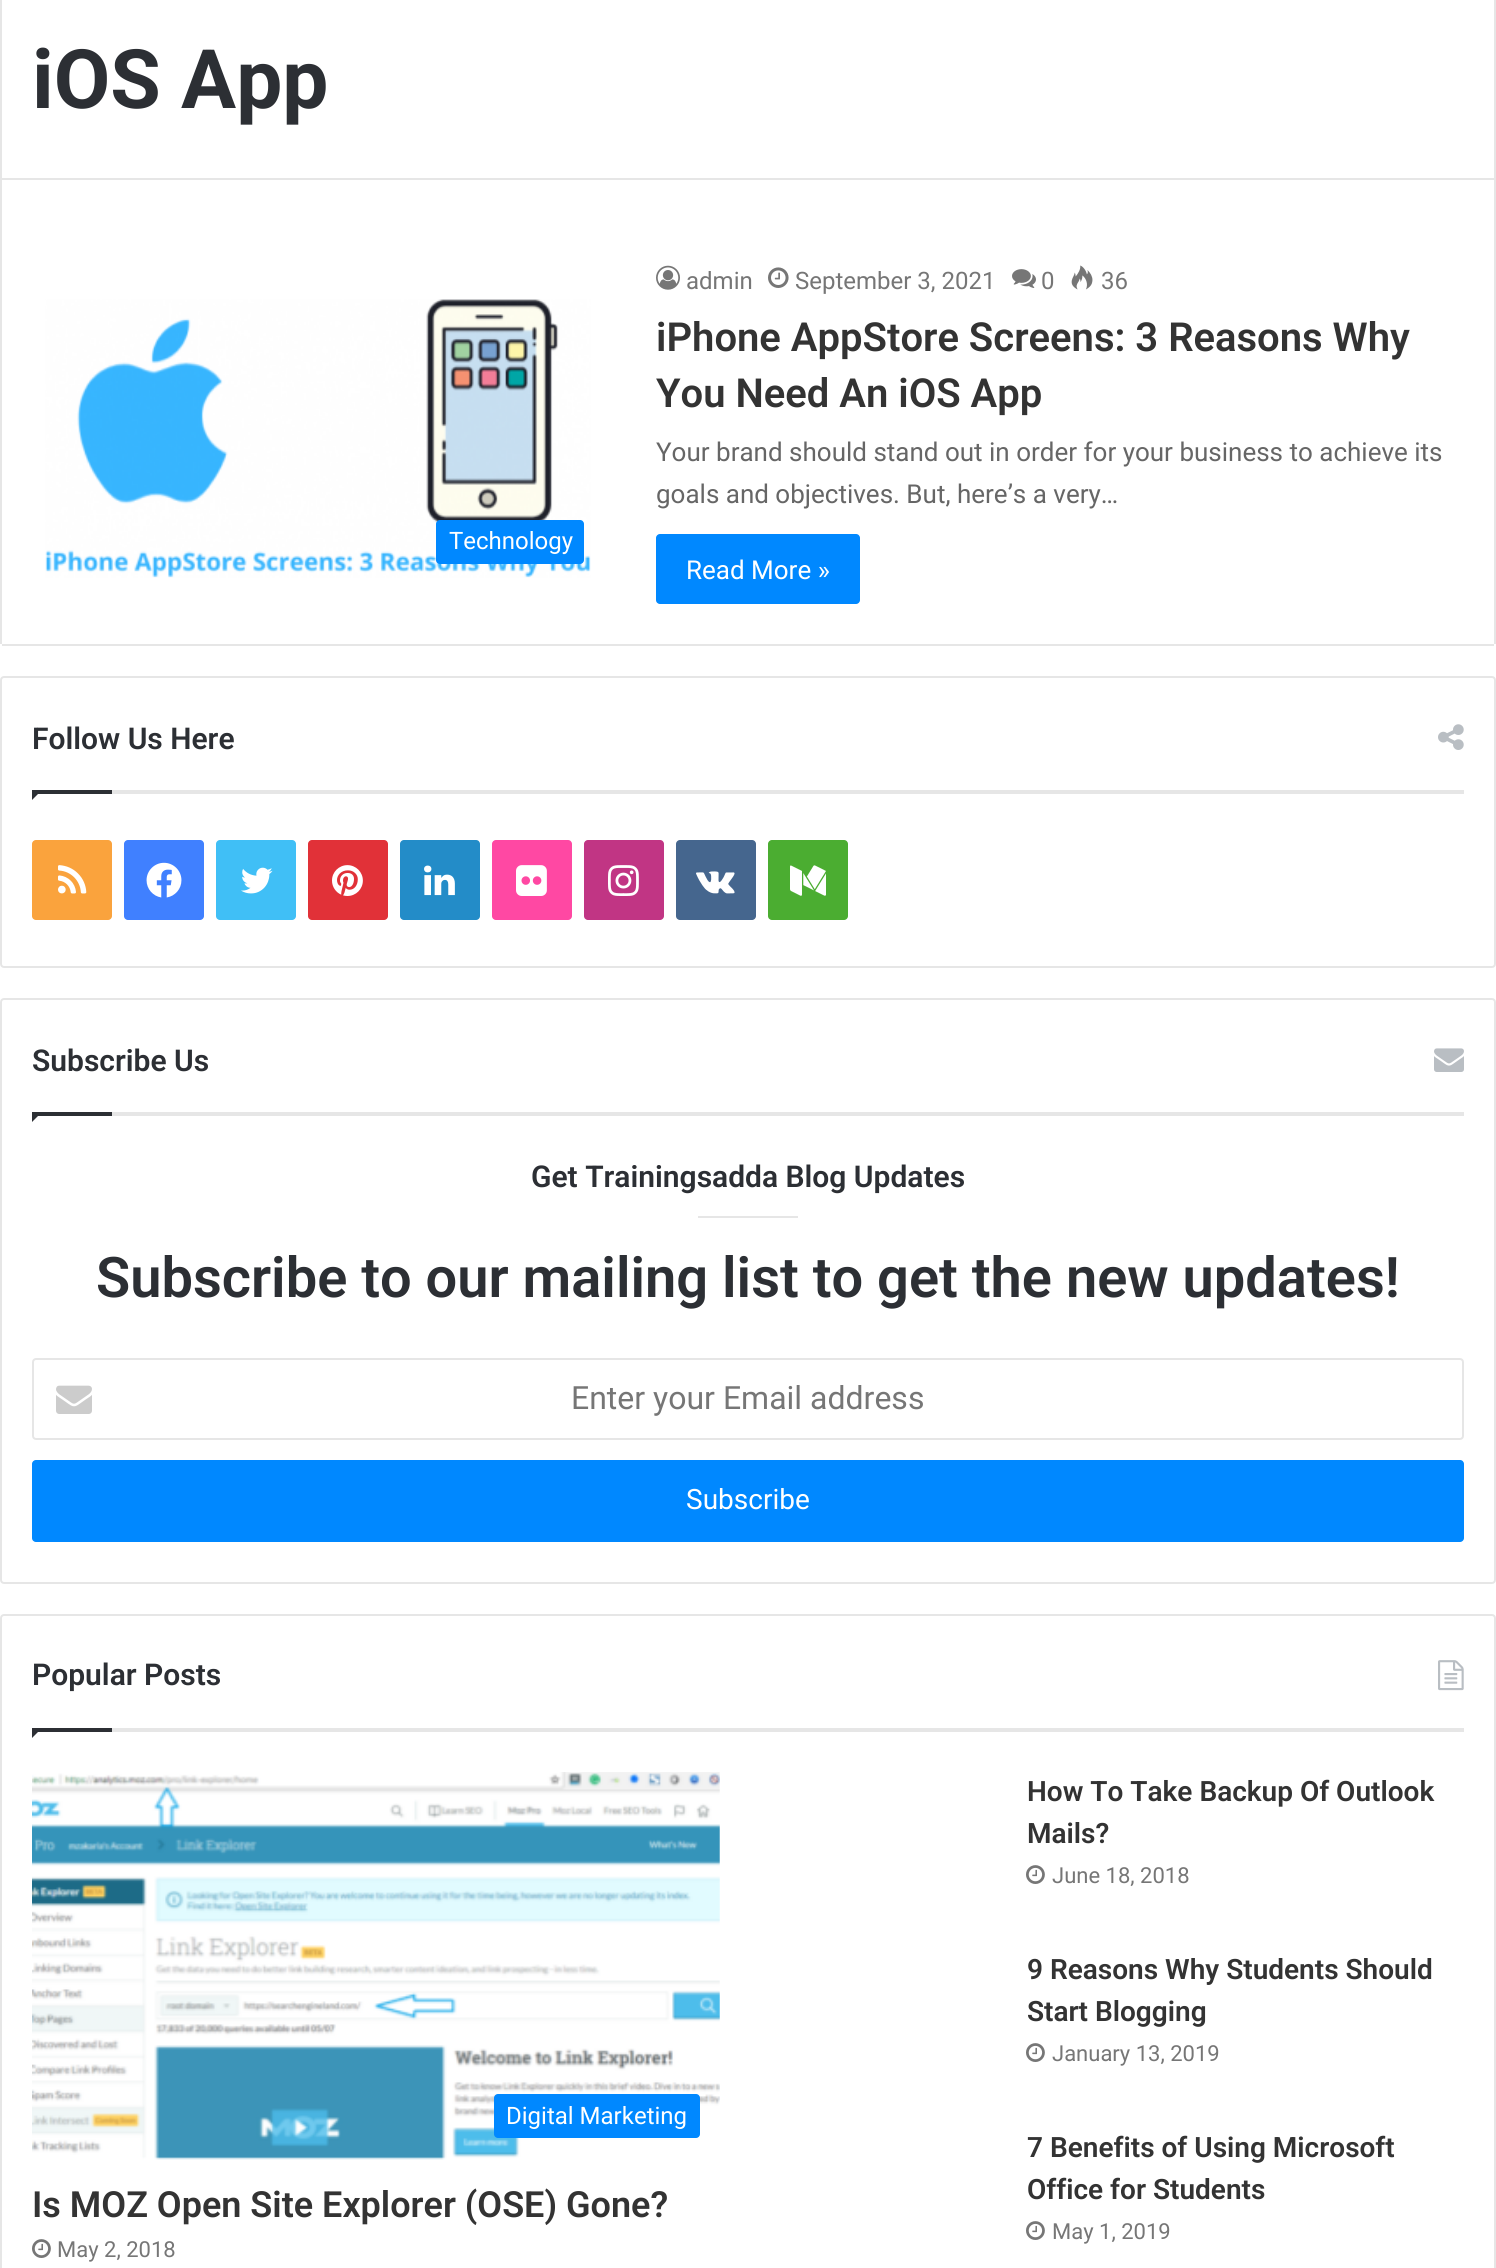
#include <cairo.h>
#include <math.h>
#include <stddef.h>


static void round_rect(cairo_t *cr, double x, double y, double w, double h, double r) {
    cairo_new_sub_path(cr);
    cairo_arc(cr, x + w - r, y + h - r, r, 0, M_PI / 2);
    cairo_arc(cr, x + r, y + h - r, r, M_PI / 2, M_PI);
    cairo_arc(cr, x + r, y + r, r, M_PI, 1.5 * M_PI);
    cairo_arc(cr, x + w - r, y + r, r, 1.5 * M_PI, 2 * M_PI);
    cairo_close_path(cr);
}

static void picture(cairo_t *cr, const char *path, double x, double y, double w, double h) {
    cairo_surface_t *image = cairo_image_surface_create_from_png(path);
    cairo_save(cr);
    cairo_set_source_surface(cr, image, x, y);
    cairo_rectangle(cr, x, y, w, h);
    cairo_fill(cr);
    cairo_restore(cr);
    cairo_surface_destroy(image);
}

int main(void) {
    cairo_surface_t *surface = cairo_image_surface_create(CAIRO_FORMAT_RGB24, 1496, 2268);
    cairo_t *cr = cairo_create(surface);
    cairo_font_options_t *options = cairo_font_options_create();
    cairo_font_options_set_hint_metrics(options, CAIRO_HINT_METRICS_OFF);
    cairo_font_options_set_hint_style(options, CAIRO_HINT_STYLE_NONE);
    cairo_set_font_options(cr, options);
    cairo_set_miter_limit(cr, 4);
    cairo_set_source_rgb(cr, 1, 1, 1);
    cairo_paint(cr);
    cairo_rectangle(cr, 1, -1, 1494, 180);
    cairo_set_source_rgb(cr, 0.902, 0.902, 0.902);
    cairo_stroke(cr);
    cairo_select_font_face(cr, "Roboto", CAIRO_FONT_SLANT_NORMAL, CAIRO_FONT_WEIGHT_BOLD);
    cairo_set_font_size(cr, 82);
    cairo_set_source_rgb(cr, 0.173, 0.184, 0.204);
    cairo_move_to(cr, 32, 108);
    cairo_show_text(cr, "iOS App");
    cairo_set_source_rgb(cr, 0.902, 0.902, 0.902);
    cairo_rectangle(cr, 1494, 180, 2, 464);
    cairo_fill(cr);
    cairo_rectangle(cr, 2, 644, 1492, 2);
    cairo_fill(cr);
    cairo_rectangle(cr, 0, 180, 2, 464);
    cairo_fill(cr);
    picture(cr, "img1.png", 45, 299, 546, 279);
    cairo_set_source_rgb(cr, 0, 0.533, 1);
    round_rect(cr, 436, 520, 148, 44, 4);
    cairo_fill(cr);
    cairo_select_font_face(cr, "Roboto", CAIRO_FONT_SLANT_NORMAL, CAIRO_FONT_WEIGHT_NORMAL);
    cairo_set_font_size(cr, 24);
    cairo_set_source_rgb(cr, 1, 1, 1);
    cairo_move_to(cr, 449, 549);
    cairo_show_text(cr, "Technology");
    picture(cr, "img2.png", 656, 265, 24, 25);
    cairo_set_source_rgb(cr, 0.463, 0.463, 0.463);
    cairo_move_to(cr, 686, 289);
    cairo_show_text(cr, "admin");
    picture(cr, "img3.png", 768, 267, 21, 21);
    cairo_move_to(cr, 795, 289);
    cairo_show_text(cr, "September 3, 2021");
    picture(cr, "img4.png", 1012, 269, 24, 19);
    cairo_move_to(cr, 1041, 289);
    cairo_show_text(cr, "0");
    picture(cr, "img5.png", 1071, 265, 22, 25);
    cairo_move_to(cr, 1101, 289);
    cairo_show_text(cr, "36");
    cairo_select_font_face(cr, "Roboto SemiBold", CAIRO_FONT_SLANT_NORMAL, CAIRO_FONT_WEIGHT_NORMAL);
    cairo_set_font_size(cr, 40);
    cairo_set_source_rgb(cr, 0.2, 0.2, 0.2);
    cairo_move_to(cr, 656, 351);
    cairo_show_text(cr, "iPhone AppStore Screens: 3 Reasons Why");
    cairo_move_to(cr, 656, 407);
    cairo_show_text(cr, "You Need An iOS App");
    cairo_select_font_face(cr, "Roboto", CAIRO_FONT_SLANT_NORMAL, CAIRO_FONT_WEIGHT_NORMAL);
    cairo_set_font_size(cr, 26);
    cairo_set_source_rgb(cr, 0.4, 0.4, 0.4);
    cairo_move_to(cr, 656, 461);
    cairo_show_text(cr, "Your brand should stand out in order for your business to achieve its");
    cairo_move_to(cr, 656, 503);
    cairo_show_text(cr, "goals and objectives. But, here’s a very…");
    cairo_set_source_rgb(cr, 0, 0.533, 1);
    round_rect(cr, 656, 534, 204, 70, 4);
    cairo_fill(cr);
    cairo_set_source_rgb(cr, 1, 1, 1);
    cairo_move_to(cr, 686, 579);
    cairo_show_text(cr, "Read More »");
    round_rect(cr, 1, 677, 1494, 290, 3);
    cairo_set_source_rgb(cr, 0.902, 0.902, 0.902);
    cairo_stroke(cr);
    cairo_rectangle(cr, 112, 790, 1352, 4);
    cairo_fill(cr);
    cairo_select_font_face(cr, "Roboto SemiBold", CAIRO_FONT_SLANT_NORMAL, CAIRO_FONT_WEIGHT_NORMAL);
    cairo_set_font_size(cr, 30);
    cairo_set_source_rgb(cr, 0.173, 0.184, 0.204);
    cairo_move_to(cr, 32, 749);
    cairo_show_text(cr, "Follow Us Here");
    picture(cr, "img6.png", 1438, 724, 26, 26);
    cairo_new_path(cr);
    cairo_move_to(cr, 32, 790);
    cairo_line_to(cr, 42, 790);
    cairo_line_to(cr, 32, 800);
    cairo_close_path(cr);
    cairo_fill(cr);
    cairo_rectangle(cr, 32, 790, 80, 4);
    cairo_fill(cr);
    cairo_set_source_rgb(cr, 0.98, 0.639, 0.239);
    round_rect(cr, 32, 840, 80, 80, 4);
    cairo_fill(cr);
    picture(cr, "img7.png", 58, 865, 29, 29);
    cairo_set_source_rgb(cr, 0.251, 0.502, 1);
    round_rect(cr, 124, 840, 80, 80, 4);
    cairo_fill(cr);
    picture(cr, "img8.png", 146, 862, 36, 36);
    cairo_set_source_rgb(cr, 0.251, 0.749, 0.961);
    round_rect(cr, 216, 840, 80, 80, 4);
    cairo_fill(cr);
    picture(cr, "img9.png", 241, 867, 32, 27);
    cairo_set_source_rgb(cr, 0.882, 0.192, 0.22);
    round_rect(cr, 308, 840, 80, 80, 4);
    cairo_fill(cr);
    picture(cr, "img10.png", 332, 865, 31, 31);
    cairo_set_source_rgb(cr, 0.137, 0.549, 0.784);
    round_rect(cr, 400, 840, 80, 80, 4);
    cairo_fill(cr);
    picture(cr, "img11.png", 424, 865, 31, 31);
    cairo_set_source_rgb(cr, 1, 0.282, 0.639);
    round_rect(cr, 492, 840, 80, 80, 4);
    cairo_fill(cr);
    picture(cr, "img12.png", 516, 865, 31, 31);
    cairo_set_source_rgb(cr, 0.757, 0.208, 0.518);
    round_rect(cr, 584, 840, 80, 80, 4);
    cairo_fill(cr);
    picture(cr, "img13.png", 608, 865, 31, 31);
    cairo_set_source_rgb(cr, 0.271, 0.4, 0.557);
    round_rect(cr, 676, 840, 80, 80, 4);
    cairo_fill(cr);
    picture(cr, "img14.png", 696, 871, 39, 23);
    cairo_set_source_rgb(cr, 0.294, 0.678, 0.192);
    round_rect(cr, 768, 840, 80, 80, 4);
    cairo_fill(cr);
    picture(cr, "img15.png", 790, 865, 36, 31);
    round_rect(cr, 1, 999, 1494, 584, 3);
    cairo_set_source_rgb(cr, 0.902, 0.902, 0.902);
    cairo_stroke(cr);
    cairo_rectangle(cr, 112, 1112, 1352, 4);
    cairo_fill(cr);
    cairo_set_source_rgb(cr, 0.173, 0.184, 0.204);
    cairo_move_to(cr, 32, 1071);
    cairo_show_text(cr, "Subscribe Us");
    picture(cr, "img16.png", 1434, 1048, 30, 24);
    cairo_new_path(cr);
    cairo_move_to(cr, 32, 1112);
    cairo_line_to(cr, 42, 1112);
    cairo_line_to(cr, 32, 1122);
    cairo_close_path(cr);
    cairo_fill(cr);
    cairo_rectangle(cr, 32, 1112, 80, 4);
    cairo_fill(cr);
    cairo_move_to(cr, 531, 1187);
    cairo_show_text(cr, "Get Trainingsadda Blog Updates");
    cairo_set_source_rgb(cr, 0.902, 0.902, 0.902);
    cairo_rectangle(cr, 698, 1216, 100, 2);
    cairo_fill(cr);
    cairo_set_font_size(cr, 56);
    cairo_set_source_rgb(cr, 0.173, 0.184, 0.204);
    cairo_move_to(cr, 96, 1297);
    cairo_show_text(cr, "Subscribe to our mailing list to get the new updates!");
    round_rect(cr, 33, 1359, 1430, 80, 3);
    cairo_set_source_rgb(cr, 0.902, 0.902, 0.902);
    cairo_stroke(cr);
    picture(cr, "img17.png", 56, 1385, 36, 29);
    cairo_select_font_face(cr, "Roboto", CAIRO_FONT_SLANT_NORMAL, CAIRO_FONT_WEIGHT_NORMAL);
    cairo_set_font_size(cr, 32);
    cairo_set_source_rgb(cr, 0.463, 0.463, 0.463);
    cairo_move_to(cr, 571, 1409);
    cairo_show_text(cr, "Enter your Email address");
    cairo_set_source_rgb(cr, 0, 0.533, 1);
    round_rect(cr, 32, 1460, 1432, 82, 4);
    cairo_fill(cr);
    cairo_set_font_size(cr, 28);
    cairo_set_source_rgb(cr, 1, 1, 1);
    cairo_move_to(cr, 686, 1509);
    cairo_show_text(cr, "Subscribe");
    round_rect(cr, 1, 1615, 1494, 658, 3);
    cairo_set_source_rgb(cr, 0.902, 0.902, 0.902);
    cairo_stroke(cr);
    cairo_rectangle(cr, 112, 1728, 1352, 4);
    cairo_fill(cr);
    cairo_select_font_face(cr, "Roboto SemiBold", CAIRO_FONT_SLANT_NORMAL, CAIRO_FONT_WEIGHT_NORMAL);
    cairo_set_font_size(cr, 30);
    cairo_set_source_rgb(cr, 0.173, 0.184, 0.204);
    cairo_move_to(cr, 32, 1685);
    cairo_show_text(cr, "Popular Posts");
    picture(cr, "img18.png", 1438, 1660, 26, 31);
    cairo_new_path(cr);
    cairo_move_to(cr, 32, 1728);
    cairo_line_to(cr, 42, 1728);
    cairo_line_to(cr, 32, 1738);
    cairo_close_path(cr);
    cairo_fill(cr);
    cairo_rectangle(cr, 32, 1728, 80, 4);
    cairo_fill(cr);
    cairo_set_font_size(cr, 28);
    cairo_set_source_rgb(cr, 0.2, 0.2, 0.2);
    cairo_move_to(cr, 1027, 1801);
    cairo_show_text(cr, "How To Take Backup Of Outlook");
    cairo_move_to(cr, 1027, 1843);
    cairo_show_text(cr, "Mails?");
    picture(cr, "img19.png", 1026, 1865, 19, 19);
    cairo_select_font_face(cr, "Roboto", CAIRO_FONT_SLANT_NORMAL, CAIRO_FONT_WEIGHT_NORMAL);
    cairo_set_font_size(cr, 22);
    cairo_set_source_rgb(cr, 0.463, 0.463, 0.463);
    cairo_move_to(cr, 1052, 1883);
    cairo_show_text(cr, "June 18, 2018");
    cairo_select_font_face(cr, "Roboto SemiBold", CAIRO_FONT_SLANT_NORMAL, CAIRO_FONT_WEIGHT_NORMAL);
    cairo_set_font_size(cr, 28);
    cairo_set_source_rgb(cr, 0.2, 0.2, 0.2);
    cairo_move_to(cr, 1027, 1979);
    cairo_show_text(cr, "9 Reasons Why Students Should");
    cairo_move_to(cr, 1027, 2021);
    cairo_show_text(cr, "Start Blogging");
    picture(cr, "img19.png", 1026, 2043, 19, 19);
    cairo_select_font_face(cr, "Roboto", CAIRO_FONT_SLANT_NORMAL, CAIRO_FONT_WEIGHT_NORMAL);
    cairo_set_font_size(cr, 22);
    cairo_set_source_rgb(cr, 0.463, 0.463, 0.463);
    cairo_move_to(cr, 1052, 2061);
    cairo_show_text(cr, "January 13, 2019");
    picture(cr, "img20.png", 32, 1772, 688, 388);
    cairo_set_source_rgb(cr, 0, 0.533, 1);
    round_rect(cr, 494, 2094, 206, 44, 4);
    cairo_fill(cr);
    cairo_set_font_size(cr, 24);
    cairo_set_source_rgb(cr, 1, 1, 1);
    cairo_move_to(cr, 506, 2124);
    cairo_show_text(cr, "Digital Marketing");
    cairo_select_font_face(cr, "Roboto SemiBold", CAIRO_FONT_SLANT_NORMAL, CAIRO_FONT_WEIGHT_NORMAL);
    cairo_set_font_size(cr, 36);
    cairo_set_source_rgb(cr, 0.2, 0.2, 0.2);
    cairo_move_to(cr, 32, 2217);
    cairo_show_text(cr, "Is MOZ Open Site Explorer (OSE) Gone?");
    picture(cr, "img19.png", 32, 2239, 19, 19);
    cairo_select_font_face(cr, "Roboto", CAIRO_FONT_SLANT_NORMAL, CAIRO_FONT_WEIGHT_NORMAL);
    cairo_set_font_size(cr, 22);
    cairo_set_source_rgb(cr, 0.463, 0.463, 0.463);
    cairo_move_to(cr, 57, 2257);
    cairo_show_text(cr, "May 2, 2018");
    cairo_select_font_face(cr, "Roboto SemiBold", CAIRO_FONT_SLANT_NORMAL, CAIRO_FONT_WEIGHT_NORMAL);
    cairo_set_font_size(cr, 28);
    cairo_set_source_rgb(cr, 0.2, 0.2, 0.2);
    cairo_move_to(cr, 1027, 2157);
    cairo_show_text(cr, "7 Benefits of Using Microsoft");
    cairo_move_to(cr, 1027, 2199);
    cairo_show_text(cr, "Office for Students");
    picture(cr, "img19.png", 1026, 2221, 19, 19);
    cairo_select_font_face(cr, "Roboto", CAIRO_FONT_SLANT_NORMAL, CAIRO_FONT_WEIGHT_NORMAL);
    cairo_set_font_size(cr, 22);
    cairo_set_source_rgb(cr, 0.463, 0.463, 0.463);
    cairo_move_to(cr, 1052, 2239);
    cairo_show_text(cr, "May 1, 2019");
    cairo_surface_write_to_png(surface, "page.png");
    cairo_font_options_destroy(options);
    cairo_destroy(cr);
    cairo_surface_destroy(surface);
    return 0;
}
